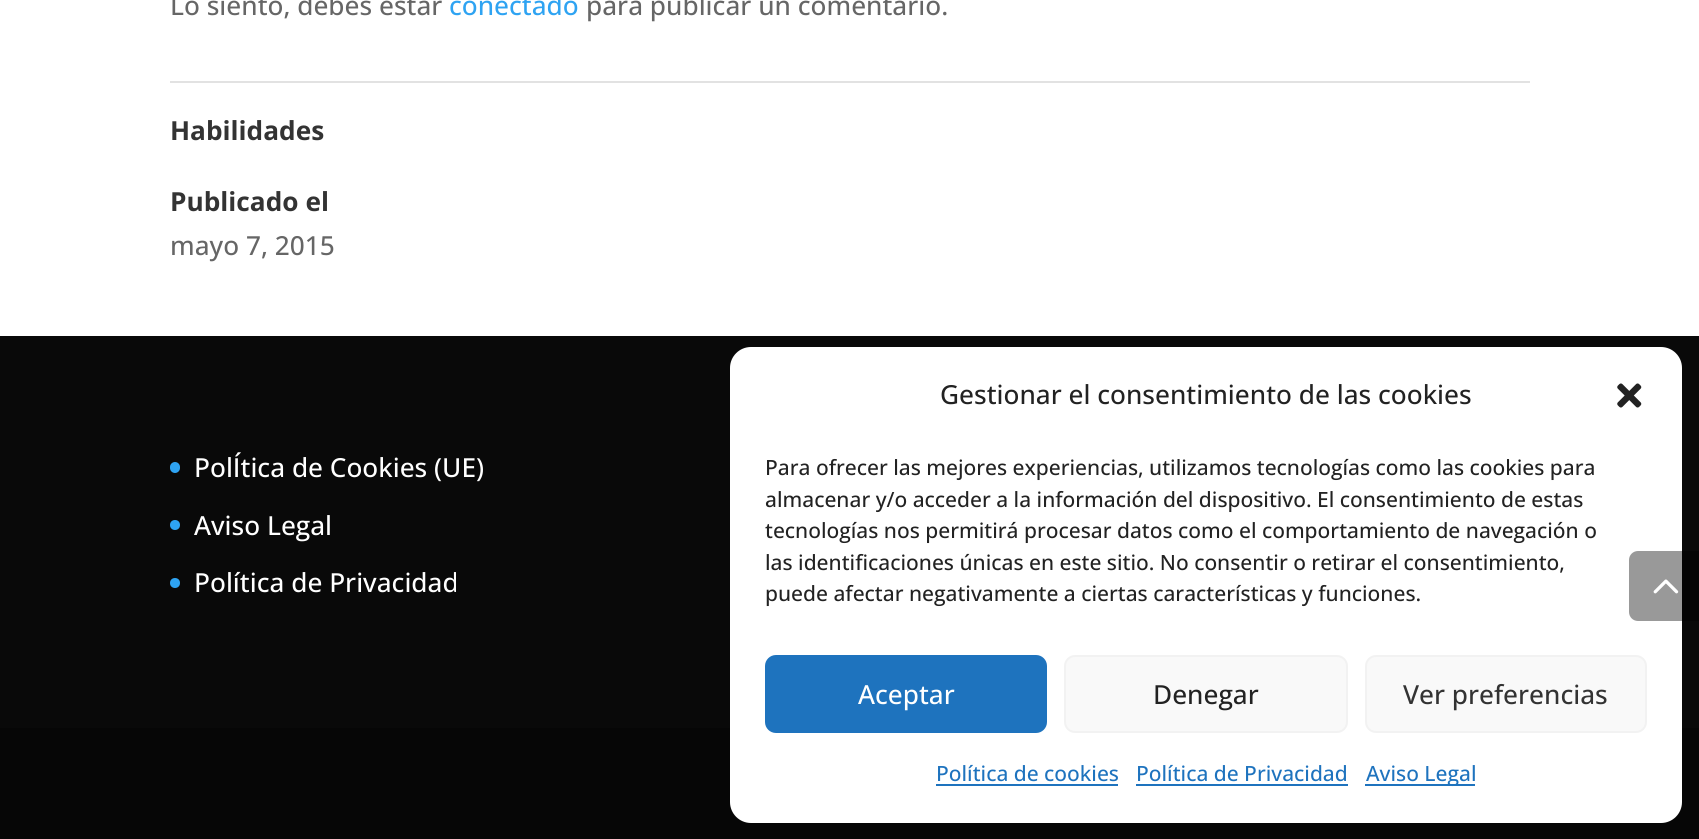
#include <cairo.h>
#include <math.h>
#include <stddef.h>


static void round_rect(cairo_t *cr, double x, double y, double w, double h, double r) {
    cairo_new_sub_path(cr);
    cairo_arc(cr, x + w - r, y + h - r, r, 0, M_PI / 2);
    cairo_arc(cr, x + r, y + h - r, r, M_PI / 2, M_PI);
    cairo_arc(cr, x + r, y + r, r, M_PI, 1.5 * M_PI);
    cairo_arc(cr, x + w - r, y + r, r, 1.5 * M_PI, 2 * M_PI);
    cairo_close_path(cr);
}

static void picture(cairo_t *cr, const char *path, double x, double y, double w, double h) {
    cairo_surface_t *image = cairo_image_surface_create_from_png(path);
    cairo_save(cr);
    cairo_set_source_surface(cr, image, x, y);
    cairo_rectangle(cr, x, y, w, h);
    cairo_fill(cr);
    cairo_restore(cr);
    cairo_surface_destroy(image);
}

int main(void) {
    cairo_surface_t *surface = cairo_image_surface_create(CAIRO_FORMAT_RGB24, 1699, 839);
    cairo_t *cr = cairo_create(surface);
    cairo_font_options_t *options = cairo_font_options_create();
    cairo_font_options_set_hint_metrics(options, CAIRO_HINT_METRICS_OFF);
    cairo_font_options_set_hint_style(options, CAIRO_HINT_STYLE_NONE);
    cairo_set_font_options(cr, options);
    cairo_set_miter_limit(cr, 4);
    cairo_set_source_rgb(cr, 1, 1, 1);
    cairo_paint(cr);
    cairo_select_font_face(cr, "Open Sans Medium", CAIRO_FONT_SLANT_NORMAL, CAIRO_FONT_WEIGHT_NORMAL);
    cairo_set_font_size(cr, 26.25);
    cairo_set_source_rgb(cr, 0.4, 0.4, 0.4);
    cairo_move_to(cr, 170, 15);
    cairo_show_text(cr, "Lo siento, debes estar");
    cairo_set_source_rgb(cr, 0.18, 0.639, 0.949);
    cairo_move_to(cr, 449, 15);
    cairo_show_text(cr, "conectado");
    cairo_set_source_rgb(cr, 0.4, 0.4, 0.4);
    cairo_move_to(cr, 586, 15);
    cairo_show_text(cr, "para publicar un comentario.");
    cairo_set_source_rgb(cr, 0.886, 0.886, 0.886);
    cairo_rectangle(cr, 170, 81, 1360, 2);
    cairo_fill(cr);
    cairo_select_font_face(cr, "Open Sans", CAIRO_FONT_SLANT_NORMAL, CAIRO_FONT_WEIGHT_BOLD);
    cairo_set_source_rgb(cr, 0.2, 0.2, 0.2);
    cairo_move_to(cr, 170, 140);
    cairo_show_text(cr, "Habilidades");
    cairo_move_to(cr, 170, 211);
    cairo_show_text(cr, "Publicado el");
    cairo_select_font_face(cr, "Open Sans Medium", CAIRO_FONT_SLANT_NORMAL, CAIRO_FONT_WEIGHT_NORMAL);
    cairo_set_source_rgb(cr, 0.4, 0.4, 0.4);
    cairo_move_to(cr, 170, 255);
    cairo_show_text(cr, "mayo 7, 2015");
    cairo_set_source_rgb(cr, 0.039, 0.039, 0.039);
    cairo_rectangle(cr, 0, 336, 1699, 392);
    cairo_fill(cr);
    cairo_set_source_rgb(cr, 0.18, 0.639, 0.949);
    round_rect(cr, 170, 462, 10, 11, 5);
    cairo_fill(cr);
    cairo_set_source_rgb(cr, 1, 1, 1);
    cairo_move_to(cr, 194, 477);
    cairo_show_text(cr, "PolÍtica de Cookies (UE)");
    cairo_set_source_rgb(cr, 0.18, 0.639, 0.949);
    cairo_new_path(cr);
    cairo_arc(cr, 175, 525, 5, 0, 2 * M_PI);
    cairo_fill(cr);
    cairo_set_source_rgb(cr, 1, 1, 1);
    cairo_move_to(cr, 194, 535);
    cairo_show_text(cr, "Aviso Legal");
    cairo_set_source_rgb(cr, 0.18, 0.639, 0.949);
    cairo_new_path(cr);
    cairo_arc(cr, 175, 583, 5, 0, 2 * M_PI);
    cairo_fill(cr);
    cairo_set_source_rgb(cr, 1, 1, 1);
    cairo_move_to(cr, 194, 592);
    cairo_show_text(cr, "Política de Privacidad");
    cairo_set_source_rgb(cr, 0.027, 0.027, 0.027);
    cairo_rectangle(cr, 0, 728, 1699, 111);
    cairo_fill(cr);
    cairo_set_source_rgb(cr, 1, 1, 1);
    round_rect(cr, 730, 347, 952, 476, 21);
    cairo_fill(cr);
    cairo_set_source_rgba(cr, 0, 0, 0, 0.4);
    cairo_new_path(cr);
    cairo_move_to(cr, 1638, 551);
    cairo_line_to(cr, 1699, 551);
    cairo_line_to(cr, 1699, 621);
    cairo_line_to(cr, 1638, 621);
    cairo_curve_to(cr, 1633, 621, 1629, 617, 1629, 612);
    cairo_line_to(cr, 1629, 560);
    cairo_curve_to(cr, 1629, 555, 1633, 551, 1638, 551);
    cairo_close_path(cr);
    cairo_fill(cr);
    picture(cr, "img1.png", 1653, 579, 26, 15);
    cairo_set_source_rgb(cr, 0.133, 0.133, 0.133);
    cairo_move_to(cr, 940, 404);
    cairo_show_text(cr, "Gestionar el consentimiento de las cookies");
    picture(cr, "img2.png", 1617, 383, 25, 25);
    cairo_set_font_size(cr, 21);
    cairo_move_to(cr, 765, 475);
    cairo_show_text(cr, "Para ofrecer las mejores experiencias, utilizamos tecnologías como las cookies para");
    cairo_move_to(cr, 765, 507);
    cairo_show_text(cr, "almacenar y/o acceder a la información del dispositivo. El consentimiento de estas");
    cairo_move_to(cr, 765, 538);
    cairo_show_text(cr, "tecnologías nos permitirá procesar datos como el comportamiento de navegación o");
    cairo_move_to(cr, 765, 570);
    cairo_show_text(cr, "las identificaciones únicas en este sitio. No consentir o retirar el consentimiento,");
    cairo_move_to(cr, 765, 601);
    cairo_show_text(cr, "puede afectar negativamente a ciertas características y funciones.");
    cairo_set_source_rgb(cr, 0.118, 0.451, 0.745);
    round_rect(cr, 766, 656, 280, 76, 10);
    cairo_fill_preserve(cr);
    cairo_stroke(cr);
    cairo_set_font_size(cr, 26.25);
    cairo_set_source_rgb(cr, 1, 1, 1);
    cairo_move_to(cr, 858, 704);
    cairo_show_text(cr, "Aceptar");
    cairo_set_source_rgb(cr, 0.976, 0.976, 0.976);
    round_rect(cr, 1065, 656, 282, 76, 10);
    cairo_fill_preserve(cr);
    cairo_set_source_rgb(cr, 0.949, 0.949, 0.949);
    cairo_stroke(cr);
    cairo_set_source_rgb(cr, 0.133, 0.133, 0.133);
    cairo_move_to(cr, 1153, 704);
    cairo_show_text(cr, "Denegar");
    cairo_set_source_rgb(cr, 0.976, 0.976, 0.976);
    round_rect(cr, 1366, 656, 280, 76, 10);
    cairo_fill_preserve(cr);
    cairo_set_source_rgb(cr, 0.949, 0.949, 0.949);
    cairo_stroke(cr);
    cairo_set_source_rgb(cr, 0.2, 0.2, 0.2);
    cairo_move_to(cr, 1403, 704);
    cairo_show_text(cr, "Ver preferencias");
    cairo_set_font_size(cr, 21);
    cairo_set_source_rgb(cr, 0.118, 0.451, 0.745);
    cairo_move_to(cr, 936, 781);
    cairo_show_text(cr, "Política de cookies");
    cairo_rectangle(cr, 936, 784, 182, 2);
    cairo_fill(cr);
    cairo_move_to(cr, 1136, 781);
    cairo_show_text(cr, "Política de Privacidad");
    cairo_rectangle(cr, 1136, 784, 212, 2);
    cairo_fill(cr);
    cairo_rectangle(cr, 1365, 784, 110, 2);
    cairo_fill(cr);
    cairo_move_to(cr, 1366, 781);
    cairo_show_text(cr, "Aviso Legal");
    cairo_surface_write_to_png(surface, "page.png");
    cairo_font_options_destroy(options);
    cairo_destroy(cr);
    cairo_surface_destroy(surface);
    return 0;
}
